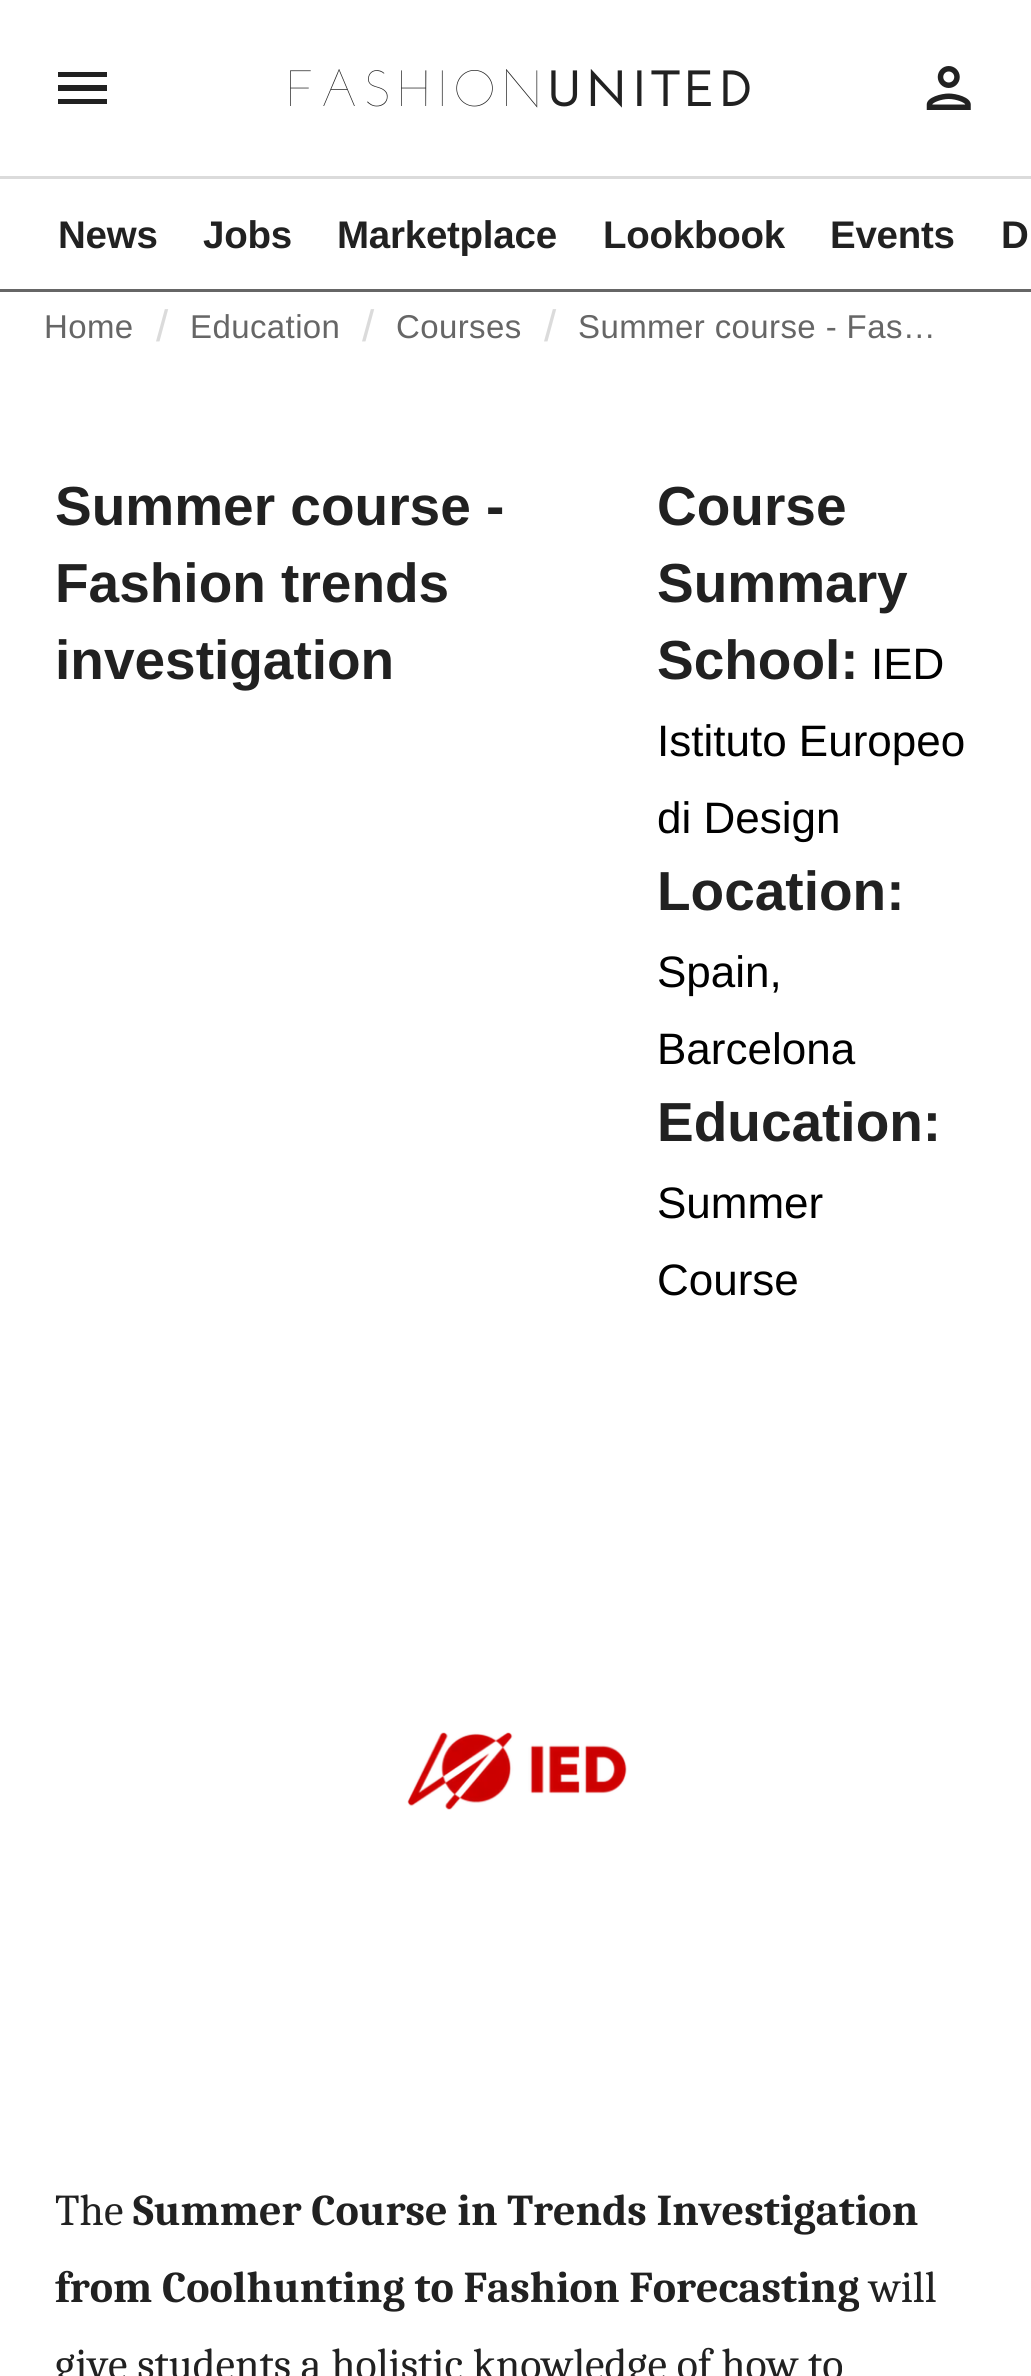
#include <cairo.h>
#include <math.h>
#include <stddef.h>


static void spaced_text(cairo_t *cr, double x, double y, const char *s, double letter, double word) {
    cairo_move_to(cr, x, y);
    while (*s) {
        char ch[5] = {0};
        int n = 0;
        do ch[n++] = *s++; while ((*s & 0xC0) == 0x80);
        cairo_show_text(cr, ch);
        cairo_rel_move_to(cr, letter + word * (*ch == ' '), 0);
    }
}

static void picture(cairo_t *cr, const char *path, double x, double y, double w, double h) {
    cairo_surface_t *image = cairo_image_surface_create_from_png(path);
    cairo_save(cr);
    cairo_set_source_surface(cr, image, x, y);
    cairo_rectangle(cr, x, y, w, h);
    cairo_fill(cr);
    cairo_restore(cr);
    cairo_surface_destroy(image);
}

int main(void) {
    cairo_surface_t *surface = cairo_image_surface_create(CAIRO_FORMAT_RGB24, 1031, 2376);
    cairo_t *cr = cairo_create(surface);
    cairo_font_options_t *options = cairo_font_options_create();
    cairo_font_options_set_hint_metrics(options, CAIRO_HINT_METRICS_OFF);
    cairo_font_options_set_hint_style(options, CAIRO_HINT_STYLE_NONE);
    cairo_set_font_options(cr, options);
    cairo_set_miter_limit(cr, 4);
    cairo_set_source_rgb(cr, 1, 1, 1);
    cairo_paint(cr);
    cairo_set_source_rgb(cr, 0.859, 0.859, 0.859);
    cairo_rectangle(cr, 0, 176, 1031, 3);
    cairo_fill(cr);
    cairo_set_source_rgb(cr, 0.129, 0.129, 0.129);
    cairo_new_path(cr);
    cairo_move_to(cr, 58, 104);
    cairo_line_to(cr, 107, 104);
    cairo_line_to(cr, 107, 99);
    cairo_line_to(cr, 58, 99);
    cairo_close_path(cr);
    cairo_move_to(cr, 58, 91);
    cairo_line_to(cr, 107, 91);
    cairo_line_to(cr, 107, 85);
    cairo_line_to(cr, 58, 85);
    cairo_close_path(cr);
    cairo_move_to(cr, 58, 72);
    cairo_line_to(cr, 58, 77);
    cairo_line_to(cr, 107, 77);
    cairo_line_to(cr, 107, 72);
    cairo_close_path(cr);
    cairo_fill(cr);
    picture(cr, "img1.png", 290, 69, 460, 39);
    picture(cr, "img2.png", 926, 66, 45, 44);
    cairo_set_source_rgb(cr, 0.4, 0.4, 0.4);
    cairo_rectangle(cr, 0, 289, 1031, 3);
    cairo_fill(cr);
    cairo_select_font_face(cr, "Liberation Sans", CAIRO_FONT_SLANT_NORMAL, CAIRO_FONT_WEIGHT_BOLD);
    cairo_set_font_size(cr, 38.5);
    cairo_set_source_rgb(cr, 0.129, 0.129, 0.129);
    spaced_text(cr, 58, 248, "News", -0.25, 0);
    spaced_text(cr, 203, 248, "Jobs", -0.25, 0);
    spaced_text(cr, 337, 248, "Marketplace", -0.25, 0);
    spaced_text(cr, 603, 248, "Lookbook", -0.25, 0);
    spaced_text(cr, 830, 248, "Events", -0.25, 0);
    spaced_text(cr, 1001, 248, "D", -0.25, 0);
    cairo_select_font_face(cr, "Liberation Sans", CAIRO_FONT_SLANT_NORMAL, CAIRO_FONT_WEIGHT_NORMAL);
    cairo_set_font_size(cr, 33);
    cairo_set_source_rgb(cr, 0.4, 0.4, 0.4);
    spaced_text(cr, 44, 338, "Home", 0.4, 0);
    cairo_set_font_size(cr, 44);
    cairo_set_source_rgb(cr, 0.859, 0.859, 0.859);
    cairo_move_to(cr, 156, 341);
    cairo_show_text(cr, "/");
    cairo_set_font_size(cr, 33);
    cairo_set_source_rgb(cr, 0.4, 0.4, 0.4);
    spaced_text(cr, 190, 338, "Education", 0.4, 0);
    cairo_set_font_size(cr, 44);
    cairo_set_source_rgb(cr, 0.859, 0.859, 0.859);
    cairo_move_to(cr, 362, 341);
    cairo_show_text(cr, "/");
    cairo_set_font_size(cr, 33);
    cairo_set_source_rgb(cr, 0.4, 0.4, 0.4);
    spaced_text(cr, 396, 338, "Courses", 0.4, 0);
    cairo_set_font_size(cr, 44);
    cairo_set_source_rgb(cr, 0.859, 0.859, 0.859);
    cairo_move_to(cr, 544, 341);
    cairo_show_text(cr, "/");
    cairo_set_font_size(cr, 33);
    cairo_set_source_rgb(cr, 0.4, 0.4, 0.4);
    spaced_text(cr, 578, 338, "Summer course - Fas…", 0.4, 0);
    cairo_select_font_face(cr, "Liberation Sans", CAIRO_FONT_SLANT_NORMAL, CAIRO_FONT_WEIGHT_BOLD);
    cairo_set_font_size(cr, 55);
    cairo_set_source_rgb(cr, 0.129, 0.129, 0.129);
    cairo_move_to(cr, 55, 525);
    cairo_show_text(cr, "Summer course -");
    cairo_move_to(cr, 55, 602);
    cairo_show_text(cr, "Fashion trends");
    cairo_move_to(cr, 55, 679);
    cairo_show_text(cr, "investigation");
    cairo_move_to(cr, 657, 525);
    cairo_show_text(cr, "Course");
    cairo_move_to(cr, 657, 602);
    cairo_show_text(cr, "Summary");
    cairo_move_to(cr, 657, 679);
    cairo_show_text(cr, "School:");
    cairo_select_font_face(cr, "Liberation Sans", CAIRO_FONT_SLANT_NORMAL, CAIRO_FONT_WEIGHT_NORMAL);
    cairo_set_font_size(cr, 44);
    cairo_set_source_rgb(cr, 0, 0, 0);
    cairo_move_to(cr, 871, 679);
    cairo_show_text(cr, "IED");
    cairo_move_to(cr, 657, 756);
    cairo_show_text(cr, "Istituto Europeo");
    cairo_move_to(cr, 657, 833);
    cairo_show_text(cr, "di Design");
    cairo_select_font_face(cr, "Liberation Sans", CAIRO_FONT_SLANT_NORMAL, CAIRO_FONT_WEIGHT_BOLD);
    cairo_set_font_size(cr, 55);
    cairo_set_source_rgb(cr, 0.129, 0.129, 0.129);
    cairo_move_to(cr, 657, 910);
    cairo_show_text(cr, "Location:");
    cairo_select_font_face(cr, "Liberation Sans", CAIRO_FONT_SLANT_NORMAL, CAIRO_FONT_WEIGHT_NORMAL);
    cairo_set_font_size(cr, 44);
    cairo_set_source_rgb(cr, 0, 0, 0);
    cairo_move_to(cr, 657, 987);
    cairo_show_text(cr, "Spain,");
    cairo_move_to(cr, 657, 1064);
    cairo_show_text(cr, "Barcelona");
    cairo_select_font_face(cr, "Liberation Sans", CAIRO_FONT_SLANT_NORMAL, CAIRO_FONT_WEIGHT_BOLD);
    cairo_set_font_size(cr, 55);
    cairo_set_source_rgb(cr, 0.129, 0.129, 0.129);
    cairo_move_to(cr, 657, 1141);
    cairo_show_text(cr, "Education:");
    cairo_select_font_face(cr, "Liberation Sans", CAIRO_FONT_SLANT_NORMAL, CAIRO_FONT_WEIGHT_NORMAL);
    cairo_set_font_size(cr, 44);
    cairo_set_source_rgb(cr, 0, 0, 0);
    cairo_move_to(cr, 657, 1218);
    cairo_show_text(cr, "Summer");
    cairo_move_to(cr, 657, 1295);
    cairo_show_text(cr, "Course");
    picture(cr, "img3.png", 407, 1732, 220, 78);
    cairo_select_font_face(cr, "Caladea", CAIRO_FONT_SLANT_NORMAL, CAIRO_FONT_WEIGHT_NORMAL);
    cairo_set_source_rgb(cr, 0.129, 0.129, 0.129);
    cairo_move_to(cr, 55, 2225);
    cairo_show_text(cr, "The");
    cairo_select_font_face(cr, "Caladea", CAIRO_FONT_SLANT_NORMAL, CAIRO_FONT_WEIGHT_BOLD);
    cairo_move_to(cr, 133, 2225);
    cairo_show_text(cr, "Summer Course in Trends Investigation");
    cairo_move_to(cr, 55, 2302);
    cairo_show_text(cr, "from Coolhunting to Fashion Forecasting");
    cairo_select_font_face(cr, "Caladea", CAIRO_FONT_SLANT_NORMAL, CAIRO_FONT_WEIGHT_NORMAL);
    cairo_move_to(cr, 869, 2302);
    cairo_show_text(cr, "will");
    cairo_move_to(cr, 55, 2379);
    cairo_show_text(cr, "give students a holistic knowledge of how to");
    cairo_surface_write_to_png(surface, "page.png");
    cairo_font_options_destroy(options);
    cairo_destroy(cr);
    cairo_surface_destroy(surface);
    return 0;
}
